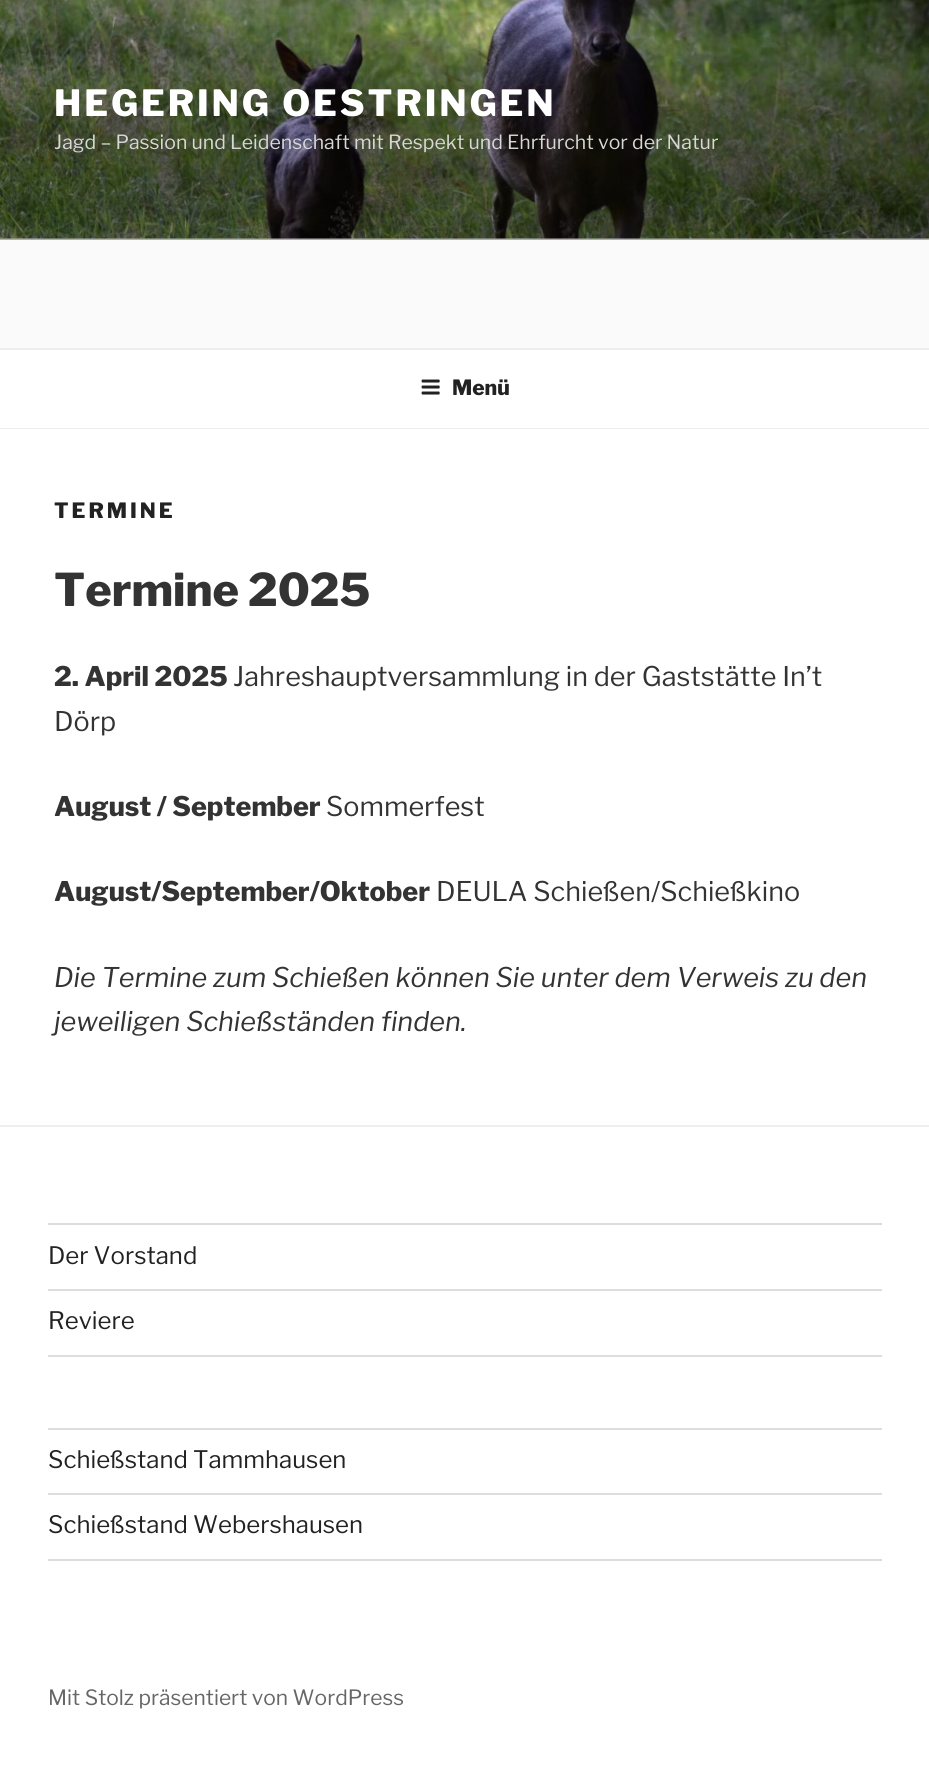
#include <cairo.h>
#include <math.h>
#include <stddef.h>


static void spaced_text(cairo_t *cr, double x, double y, const char *s, double letter, double word) {
    cairo_move_to(cr, x, y);
    while (*s) {
        char ch[5] = {0};
        int n = 0;
        do ch[n++] = *s++; while ((*s & 0xC0) == 0x80);
        cairo_show_text(cr, ch);
        cairo_rel_move_to(cr, letter + word * (*ch == ' '), 0);
    }
}

static void picture(cairo_t *cr, const char *path, double x, double y, double w, double h) {
    cairo_surface_t *image = cairo_image_surface_create_from_png(path);
    cairo_save(cr);
    cairo_set_source_surface(cr, image, x, y);
    cairo_rectangle(cr, x, y, w, h);
    cairo_fill(cr);
    cairo_restore(cr);
    cairo_surface_destroy(image);
}

int main(void) {
    cairo_surface_t *surface = cairo_image_surface_create(CAIRO_FORMAT_RGB24, 929, 1787);
    cairo_t *cr = cairo_create(surface);
    cairo_font_options_t *options = cairo_font_options_create();
    cairo_font_options_set_hint_metrics(options, CAIRO_HINT_METRICS_OFF);
    cairo_font_options_set_hint_style(options, CAIRO_HINT_STYLE_NONE);
    cairo_set_font_options(cr, options);
    cairo_set_miter_limit(cr, 4);
    cairo_pattern_t *gradient;
    cairo_set_source_rgb(cr, 1, 1, 1);
    cairo_paint(cr);
    cairo_set_source_rgb(cr, 0.98, 0.98, 0.98);
    cairo_rectangle(cr, 0, 238, 929, 110);
    cairo_fill(cr);
    picture(cr, "img1.png", 0, 0, 929, 239);
    gradient = cairo_pattern_create_linear(465, 0, 465, 240);
    cairo_pattern_add_color_stop_rgba(gradient, 0, 0, 0, 0, 0);
    cairo_pattern_add_color_stop_rgba(gradient, 0.75, 0, 0, 0, 0.3);
    cairo_pattern_add_color_stop_rgba(gradient, 1, 0, 0, 0, 0.3);
    cairo_set_source(cr, gradient);
    cairo_pattern_destroy(gradient);
    cairo_rectangle(cr, 0, 13, 929, 227);
    cairo_fill(cr);
    cairo_select_font_face(cr, "Libre Franklin Thin", CAIRO_FONT_SLANT_NORMAL, CAIRO_FONT_WEIGHT_NORMAL);
    cairo_set_font_size(cr, 36);
    cairo_set_source_rgb(cr, 1, 1, 1);
    spaced_text(cr, 54, 116, "HEGERING OESTRINGEN", 2.9, 0);
    cairo_select_font_face(cr, "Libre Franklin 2 Thin", CAIRO_FONT_SLANT_NORMAL, CAIRO_FONT_WEIGHT_NORMAL);
    cairo_set_font_size(cr, 19.5);
    cairo_set_source_rgb(cr, 0.843, 0.847, 0.835);
    cairo_move_to(cr, 54, 149);
    cairo_show_text(cr, "Jagd – Passion und Leidenschaft mit Respekt und Ehrfurcht vor der Natur");
    cairo_set_source_rgb(cr, 0.933, 0.933, 0.933);
    cairo_rectangle(cr, 0, 348, 929, 2);
    cairo_fill(cr);
    cairo_rectangle(cr, 0, 428, 929, 1);
    cairo_fill(cr);
    picture(cr, "img2.png", 421, 379, 19, 16);
    cairo_select_font_face(cr, "Libre Franklin Thin", CAIRO_FONT_SLANT_NORMAL, CAIRO_FONT_WEIGHT_NORMAL);
    cairo_set_font_size(cr, 21);
    cairo_set_source_rgb(cr, 0.133, 0.133, 0.133);
    cairo_move_to(cr, 452, 395);
    cairo_show_text(cr, "Menü");
    spaced_text(cr, 54, 518, "TERMINE", 3, 0);
    cairo_set_font_size(cr, 45);
    cairo_set_source_rgb(cr, 0.2, 0.2, 0.2);
    cairo_move_to(cr, 54, 606);
    cairo_show_text(cr, "Termine 2025");
    cairo_set_font_size(cr, 27);
    cairo_move_to(cr, 54, 686);
    cairo_show_text(cr, "2. April 2025");
    cairo_select_font_face(cr, "Libre Franklin 2 Thin", CAIRO_FONT_SLANT_NORMAL, CAIRO_FONT_WEIGHT_NORMAL);
    cairo_move_to(cr, 233, 686);
    cairo_show_text(cr, "Jahreshauptversammlung in der Gaststätte In’t");
    cairo_move_to(cr, 54, 731);
    cairo_show_text(cr, "Dörp");
    cairo_select_font_face(cr, "Libre Franklin Thin", CAIRO_FONT_SLANT_NORMAL, CAIRO_FONT_WEIGHT_NORMAL);
    cairo_move_to(cr, 54, 816);
    cairo_show_text(cr, "August / September");
    cairo_select_font_face(cr, "Libre Franklin 2 Thin", CAIRO_FONT_SLANT_NORMAL, CAIRO_FONT_WEIGHT_NORMAL);
    cairo_move_to(cr, 326, 816);
    cairo_show_text(cr, "Sommerfest");
    cairo_select_font_face(cr, "Libre Franklin Thin", CAIRO_FONT_SLANT_NORMAL, CAIRO_FONT_WEIGHT_NORMAL);
    cairo_move_to(cr, 54, 901);
    cairo_show_text(cr, "August/September/Oktober");
    cairo_select_font_face(cr, "Libre Franklin 2 Thin", CAIRO_FONT_SLANT_NORMAL, CAIRO_FONT_WEIGHT_NORMAL);
    cairo_move_to(cr, 436, 901);
    cairo_show_text(cr, "DEULA Schießen/Schießkino");
    cairo_select_font_face(cr, "Libre Franklin Thin", CAIRO_FONT_SLANT_ITALIC, CAIRO_FONT_WEIGHT_NORMAL);
    cairo_move_to(cr, 54, 987);
    cairo_show_text(cr, "Die Termine zum Schießen können Sie unter dem Verweis zu den");
    cairo_move_to(cr, 54, 1031);
    cairo_show_text(cr, "jeweiligen Schießständen finden.");
    cairo_set_source_rgb(cr, 0.933, 0.933, 0.933);
    cairo_rectangle(cr, 0, 1125, 929, 2);
    cairo_fill(cr);
    cairo_set_source_rgb(cr, 0.867, 0.867, 0.867);
    cairo_rectangle(cr, 48, 1223, 834, 2);
    cairo_fill(cr);
    cairo_rectangle(cr, 48, 1289, 834, 2);
    cairo_fill(cr);
    cairo_select_font_face(cr, "Libre Franklin 2 Thin", CAIRO_FONT_SLANT_NORMAL, CAIRO_FONT_WEIGHT_NORMAL);
    cairo_set_font_size(cr, 24);
    cairo_set_source_rgb(cr, 0.133, 0.133, 0.133);
    cairo_move_to(cr, 48, 1264);
    cairo_show_text(cr, "Der Vorstand");
    cairo_set_source_rgb(cr, 0.867, 0.867, 0.867);
    cairo_rectangle(cr, 48, 1355, 834, 2);
    cairo_fill(cr);
    cairo_set_source_rgb(cr, 0.133, 0.133, 0.133);
    cairo_move_to(cr, 48, 1329);
    cairo_show_text(cr, "Reviere");
    cairo_set_source_rgb(cr, 0.867, 0.867, 0.867);
    cairo_rectangle(cr, 48, 1428, 834, 2);
    cairo_fill(cr);
    cairo_rectangle(cr, 48, 1493, 834, 2);
    cairo_fill(cr);
    cairo_set_source_rgb(cr, 0.133, 0.133, 0.133);
    cairo_move_to(cr, 48, 1468);
    cairo_show_text(cr, "Schießstand Tammhausen");
    cairo_set_source_rgb(cr, 0.867, 0.867, 0.867);
    cairo_rectangle(cr, 48, 1559, 834, 2);
    cairo_fill(cr);
    cairo_set_source_rgb(cr, 0.133, 0.133, 0.133);
    cairo_move_to(cr, 48, 1533);
    cairo_show_text(cr, "Schießstand Webershausen");
    cairo_set_font_size(cr, 21);
    cairo_set_source_rgb(cr, 0.4, 0.4, 0.4);
    cairo_move_to(cr, 48, 1705);
    cairo_show_text(cr, "Mit Stolz präsentiert von WordPress");
    cairo_surface_write_to_png(surface, "page.png");
    cairo_font_options_destroy(options);
    cairo_destroy(cr);
    cairo_surface_destroy(surface);
    return 0;
}
